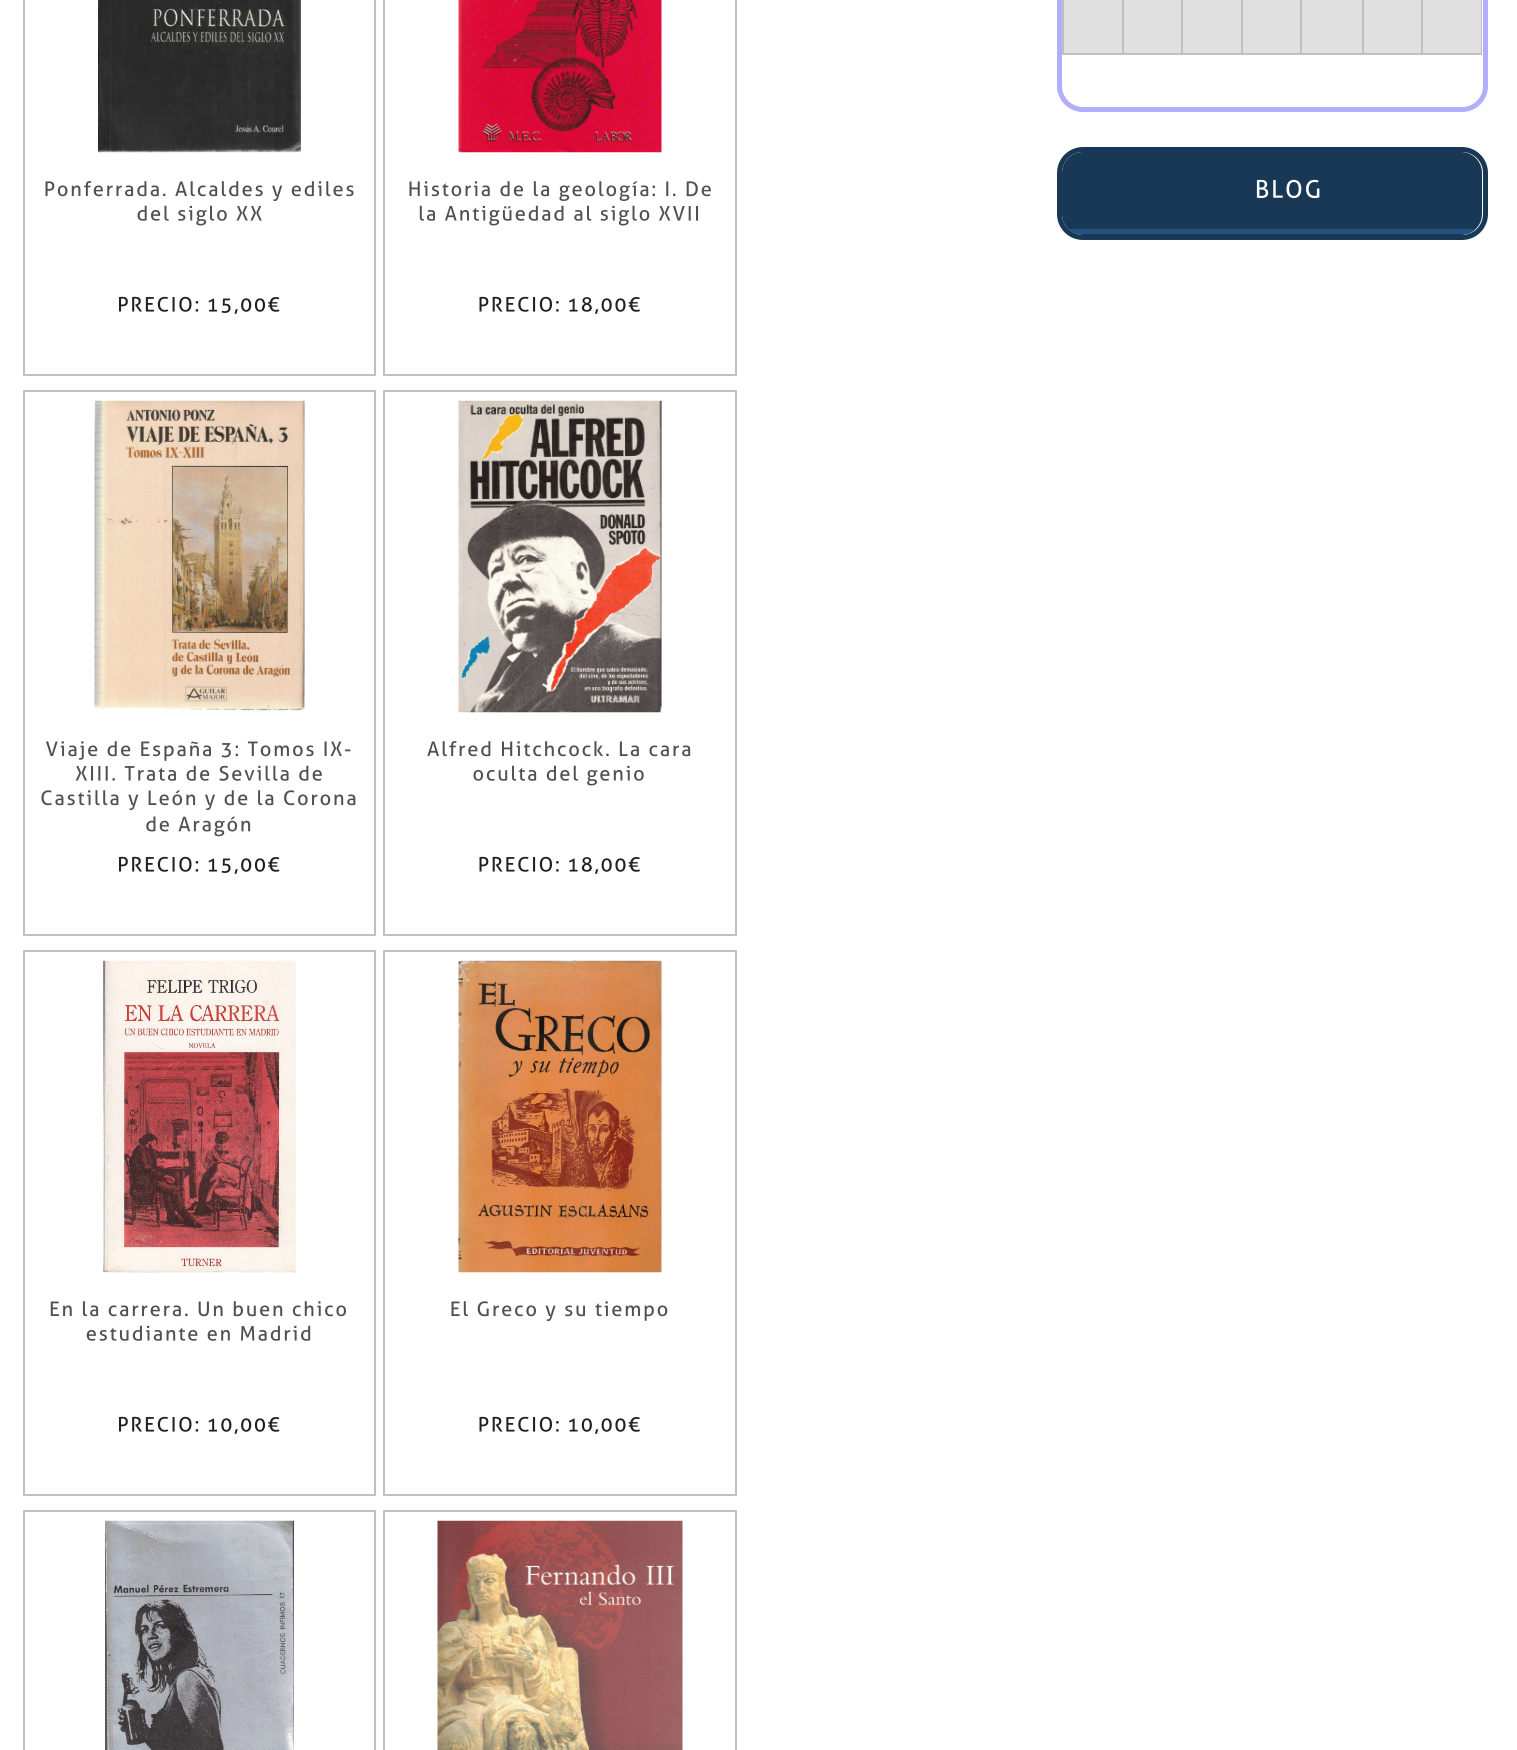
#include <cairo.h>
#include <math.h>
#include <stddef.h>


static void round_rect(cairo_t *cr, double x, double y, double w, double h, double r) {
    cairo_new_sub_path(cr);
    cairo_arc(cr, x + w - r, y + h - r, r, 0, M_PI / 2);
    cairo_arc(cr, x + r, y + h - r, r, M_PI / 2, M_PI);
    cairo_arc(cr, x + r, y + r, r, M_PI, 1.5 * M_PI);
    cairo_arc(cr, x + w - r, y + r, r, 1.5 * M_PI, 2 * M_PI);
    cairo_close_path(cr);
}

static void picture(cairo_t *cr, const char *path, double x, double y, double w, double h) {
    cairo_surface_t *image = cairo_image_surface_create_from_png(path);
    cairo_save(cr);
    cairo_set_source_surface(cr, image, x, y);
    cairo_rectangle(cr, x, y, w, h);
    cairo_fill(cr);
    cairo_restore(cr);
    cairo_surface_destroy(image);
}

int main(void) {
    cairo_surface_t *surface = cairo_image_surface_create(CAIRO_FORMAT_RGB24, 1517, 1750);
    cairo_t *cr = cairo_create(surface);
    cairo_font_options_t *options = cairo_font_options_create();
    cairo_font_options_set_hint_metrics(options, CAIRO_HINT_METRICS_OFF);
    cairo_font_options_set_hint_style(options, CAIRO_HINT_STYLE_NONE);
    cairo_set_font_options(cr, options);
    cairo_set_miter_limit(cr, 4);
    cairo_set_source_rgb(cr, 1, 1, 1);
    cairo_paint(cr);
    cairo_rectangle(cr, 24, -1, 351, 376);
    cairo_set_source_rgb(cr, 0.753, 0.753, 0.753);
    cairo_stroke(cr);
    picture(cr, "img1.png", 98, 0, 203, 153);
    picture(cr, "img2.png", 45, 181, 309, 20);
    picture(cr, "img3.png", 137, 205, 125, 21);
    picture(cr, "img4.png", 119, 296, 80, 16);
    picture(cr, "img5.png", 208, 297, 72, 17);
    cairo_rectangle(cr, 384, -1, 352, 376);
    cairo_stroke(cr);
    picture(cr, "img6.png", 458, 0, 204, 153);
    picture(cr, "img7.png", 409, 181, 302, 20);
    picture(cr, "img8.png", 419, 205, 280, 21);
    picture(cr, "img9.png", 479, 296, 80, 16);
    picture(cr, "img10.png", 569, 297, 71, 17);
    cairo_rectangle(cr, 24, 391, 351, 544);
    cairo_stroke(cr);
    picture(cr, "img11.png", 94, 400, 211, 312);
    picture(cr, "img12.png", 46, 741, 305, 20);
    picture(cr, "img13.png", 75, 765, 247, 16);
    picture(cr, "img14.png", 41, 790, 315, 20);
    picture(cr, "img15.png", 146, 816, 105, 21);
    picture(cr, "img4.png", 119, 856, 80, 16);
    picture(cr, "img5.png", 208, 857, 72, 17);
    cairo_rectangle(cr, 384, 391, 352, 544);
    cairo_stroke(cr);
    picture(cr, "img16.png", 458, 400, 204, 313);
    picture(cr, "img17.png", 427, 741, 264, 16);
    picture(cr, "img18.png", 473, 765, 171, 21);
    picture(cr, "img9.png", 479, 856, 80, 16);
    picture(cr, "img10.png", 569, 857, 71, 17);
    cairo_rectangle(cr, 24, 951, 351, 544);
    cairo_stroke(cr);
    picture(cr, "img19.png", 103, 960, 193, 313);
    picture(cr, "img20.png", 50, 1301, 296, 16);
    picture(cr, "img21.png", 86, 1325, 225, 16);
    picture(cr, "img4.png", 119, 1416, 80, 16);
    picture(cr, "img22.png", 208, 1417, 72, 17);
    cairo_rectangle(cr, 384, 951, 352, 544);
    cairo_stroke(cr);
    picture(cr, "img23.png", 458, 960, 204, 313);
    picture(cr, "img24.png", 451, 1301, 217, 20);
    picture(cr, "img9.png", 479, 1416, 80, 16);
    picture(cr, "img25.png", 569, 1417, 71, 17);
    cairo_rectangle(cr, 24, 1511, 351, 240);
    cairo_stroke(cr);
    picture(cr, "img26.png", 105, 1520, 189, 230);
    cairo_rectangle(cr, 384, 1511, 352, 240);
    cairo_stroke(cr);
    picture(cr, "img27.png", 437, 1520, 246, 230);
    round_rect(cr, 1059.5, -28.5, 426, 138, 23.5);
    cairo_set_source_rgb(cr, 0.702, 0.678, 1);
    cairo_set_line_width(cr, 5);
    cairo_stroke(cr);
    cairo_set_source_rgb(cr, 0.878, 0.878, 0.878);
    cairo_rectangle(cr, 1064, 0, 58, 53);
    cairo_fill(cr);
    cairo_set_source_rgb(cr, 0.753, 0.753, 0.753);
    cairo_rectangle(cr, 1481, 0, 1, 54);
    cairo_fill(cr);
    cairo_rectangle(cr, 1421, 53, 61, 2);
    cairo_fill(cr);
    cairo_rectangle(cr, 1421, 0, 2, 54);
    cairo_fill(cr);
    cairo_rectangle(cr, 1362, 53, 61, 2);
    cairo_fill(cr);
    cairo_rectangle(cr, 1362, 0, 2, 54);
    cairo_fill(cr);
    cairo_rectangle(cr, 1300, 53, 63, 2);
    cairo_fill(cr);
    cairo_rectangle(cr, 1300, 0, 2, 54);
    cairo_fill(cr);
    cairo_rectangle(cr, 1241, 53, 61, 2);
    cairo_fill(cr);
    cairo_rectangle(cr, 1241, 0, 2, 54);
    cairo_fill(cr);
    cairo_rectangle(cr, 1181, 53, 62, 2);
    cairo_fill(cr);
    cairo_rectangle(cr, 1181, 0, 2, 54);
    cairo_fill(cr);
    cairo_rectangle(cr, 1122, 53, 61, 2);
    cairo_fill(cr);
    cairo_rectangle(cr, 1122, 0, 2, 54);
    cairo_fill(cr);
    cairo_rectangle(cr, 1062, 53, 62, 2);
    cairo_fill(cr);
    cairo_rectangle(cr, 1062, 0, 2, 54);
    cairo_fill(cr);
    cairo_set_source_rgb(cr, 0.878, 0.878, 0.878);
    cairo_rectangle(cr, 1124, 0, 57, 53);
    cairo_fill(cr);
    cairo_rectangle(cr, 1183, 0, 58, 53);
    cairo_fill(cr);
    cairo_rectangle(cr, 1243, 0, 57, 53);
    cairo_fill(cr);
    cairo_rectangle(cr, 1302, 0, 60, 53);
    cairo_fill(cr);
    cairo_rectangle(cr, 1364, 0, 57, 53);
    cairo_fill(cr);
    cairo_rectangle(cr, 1423, 0, 58, 53);
    cairo_fill(cr);
    round_rect(cr, 1059.5, 149.5, 426, 88, 23.5);
    cairo_set_source_rgb(cr, 0.094, 0.22, 0.337);
    cairo_stroke(cr);
    round_rect(cr, 1062, 152, 420, 83, 21);
    cairo_fill(cr);
    cairo_save(cr);
    round_rect(cr, 1062, 152, 420, 83, 21);
    cairo_clip(cr);
    cairo_set_source_rgb(cr, 0.141, 0.325, 0.502);
    cairo_rectangle(cr, 1062, 229, 420, 5);
    cairo_fill(cr);
    cairo_restore(cr);
    picture(cr, "img28.png", 1256, 179, 64, 20);
    cairo_surface_write_to_png(surface, "page.png");
    cairo_font_options_destroy(options);
    cairo_destroy(cr);
    cairo_surface_destroy(surface);
    return 0;
}
